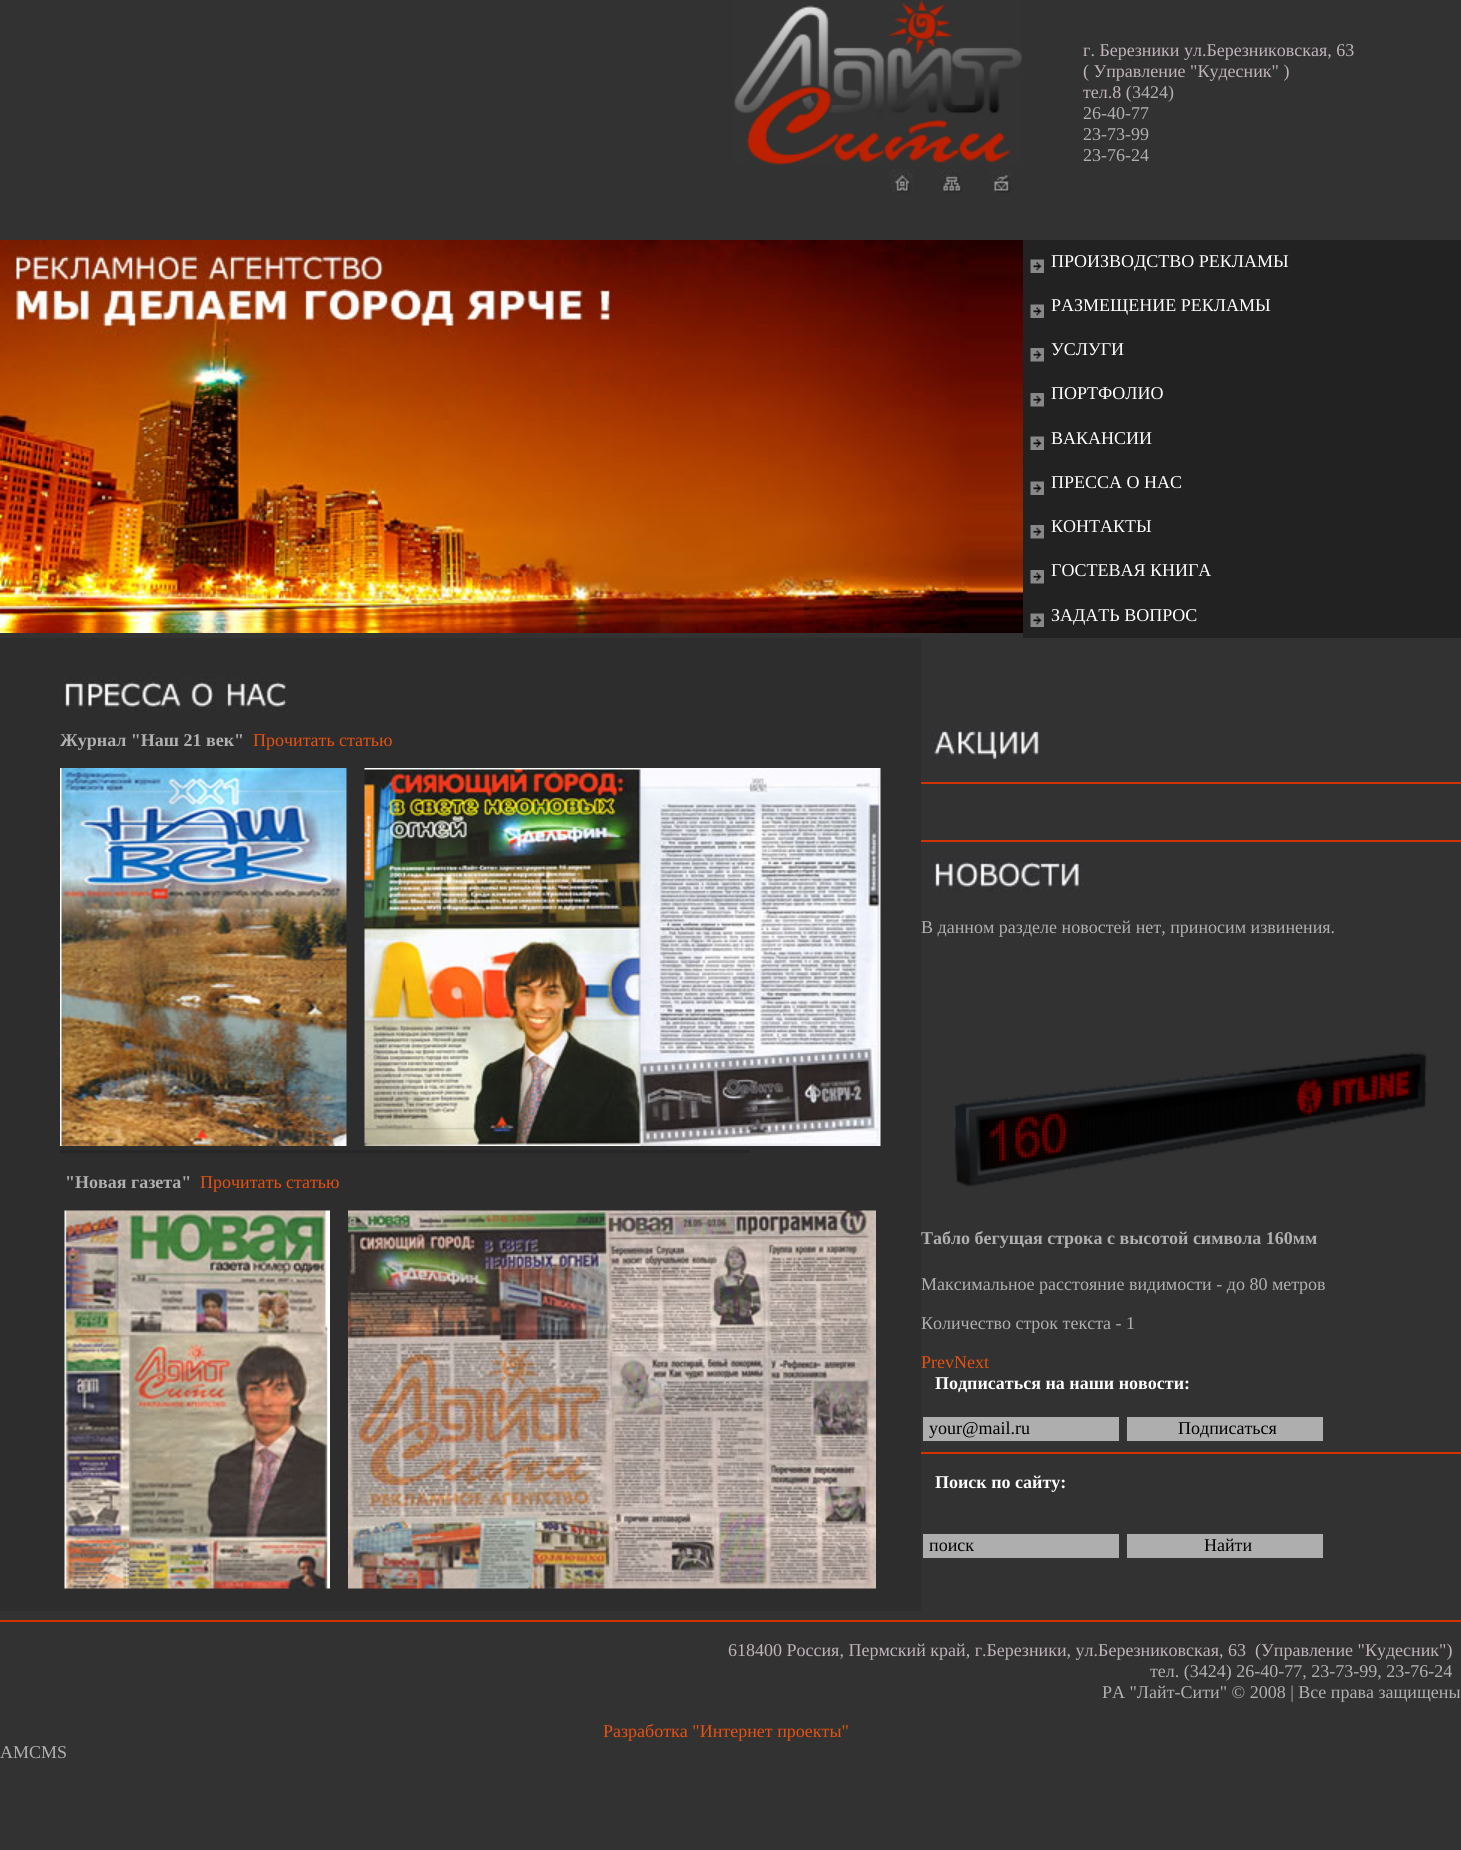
#include <cairo.h>
#include <math.h>
#include <stddef.h>


static void picture(cairo_t *cr, const char *path, double x, double y, double w, double h) {
    cairo_surface_t *image = cairo_image_surface_create_from_png(path);
    cairo_save(cr);
    cairo_set_source_surface(cr, image, x, y);
    cairo_rectangle(cr, x, y, w, h);
    cairo_fill(cr);
    cairo_restore(cr);
    cairo_surface_destroy(image);
}

int main(void) {
    cairo_surface_t *surface = cairo_image_surface_create(CAIRO_FORMAT_RGB24, 1461, 1850);
    cairo_t *cr = cairo_create(surface);
    cairo_font_options_t *options = cairo_font_options_create();
    cairo_font_options_set_hint_metrics(options, CAIRO_HINT_METRICS_OFF);
    cairo_font_options_set_hint_style(options, CAIRO_HINT_STYLE_NONE);
    cairo_set_font_options(cr, options);
    cairo_set_miter_limit(cr, 4);
    cairo_set_source_rgb(cr, 0.196, 0.196, 0.196);
    cairo_paint(cr);
    picture(cr, "img1.png", 733, 0, 289, 166);
    picture(cr, "img2.png", 889, 169, 25, 24);
    picture(cr, "img3.png", 938, 169, 24, 25);
    picture(cr, "img4.png", 989, 169, 24, 24);
    cairo_select_font_face(cr, "Liberation Serif", CAIRO_FONT_SLANT_NORMAL, CAIRO_FONT_WEIGHT_NORMAL);
    cairo_set_font_size(cr, 18);
    cairo_set_source_rgb(cr, 0.749, 0.702, 0.729);
    cairo_move_to(cr, 1083, 56);
    cairo_show_text(cr, "г. Березники ул.Березниковская, 63");
    cairo_move_to(cr, 1083, 77);
    cairo_show_text(cr, "( Управление \"Кудесник\" )");
    cairo_move_to(cr, 1083, 98);
    cairo_show_text(cr, "тел.8 (");
    cairo_set_source_rgb(cr, 0.69, 0.69, 0.69);
    cairo_move_to(cr, 1132, 98);
    cairo_show_text(cr, "3424)");
    cairo_move_to(cr, 1083, 119);
    cairo_show_text(cr, "26-40-77");
    cairo_move_to(cr, 1083, 140);
    cairo_show_text(cr, "23-73-99");
    cairo_move_to(cr, 1083, 161);
    cairo_show_text(cr, "23-76-24");
    picture(cr, "img5.png", 969, 240, 54, 393);
    picture(cr, "img6.png", 0, 240, 969, 393);
    cairo_set_source_rgb(cr, 0.133, 0.133, 0.133);
    cairo_rectangle(cr, 1023, 240, 438, 398);
    cairo_fill(cr);
    picture(cr, "img7.png", 1030, 259, 14, 14);
    cairo_set_source_rgb(cr, 1, 1, 1);
    cairo_move_to(cr, 1051, 267);
    cairo_show_text(cr, "ПРОИЗВОДСТВО РЕКЛАМЫ");
    picture(cr, "img7.png", 1030, 304, 14, 14);
    cairo_move_to(cr, 1051, 311);
    cairo_show_text(cr, "РАЗМЕЩЕНИЕ РЕКЛАМЫ");
    picture(cr, "img8.png", 1030, 348, 14, 14);
    cairo_move_to(cr, 1051, 355);
    cairo_show_text(cr, "УСЛУГИ");
    picture(cr, "img8.png", 1030, 393, 14, 14);
    cairo_move_to(cr, 1051, 399);
    cairo_show_text(cr, "ПОРТФОЛИО");
    picture(cr, "img7.png", 1030, 436, 14, 14);
    cairo_move_to(cr, 1051, 444);
    cairo_show_text(cr, "ВАКАНСИИ");
    picture(cr, "img7.png", 1030, 481, 14, 14);
    cairo_move_to(cr, 1051, 488);
    cairo_show_text(cr, "ПРЕССА О НАС");
    picture(cr, "img8.png", 1030, 525, 14, 14);
    cairo_move_to(cr, 1051, 532);
    cairo_show_text(cr, "КОНТАКТЫ");
    picture(cr, "img8.png", 1030, 570, 14, 14);
    cairo_move_to(cr, 1051, 576);
    cairo_show_text(cr, "ГОСТЕВАЯ КНИГА");
    picture(cr, "img7.png", 1030, 613, 14, 14);
    cairo_move_to(cr, 1051, 621);
    cairo_show_text(cr, "ЗАДАТЬ ВОПРОС");
    cairo_set_source_rgb(cr, 0.176, 0.176, 0.176);
    cairo_rectangle(cr, 0, 638, 921, 973);
    cairo_fill(cr);
    picture(cr, "img9.png", 60, 677, 228, 34);
    cairo_select_font_face(cr, "Liberation Serif", CAIRO_FONT_SLANT_NORMAL, CAIRO_FONT_WEIGHT_BOLD);
    cairo_set_source_rgb(cr, 0.69, 0.69, 0.69);
    cairo_move_to(cr, 60, 746);
    cairo_show_text(cr, "Журнал \"Наш 21 век\"");
    cairo_select_font_face(cr, "Liberation Serif", CAIRO_FONT_SLANT_NORMAL, CAIRO_FONT_WEIGHT_NORMAL);
    cairo_set_source_rgb(cr, 0.898, 0.318, 0.063);
    cairo_move_to(cr, 253, 746);
    cairo_show_text(cr, "Прочитать статью");
    picture(cr, "img10.png", 60, 768, 287, 378);
    picture(cr, "img11.png", 364, 768, 517, 378);
    cairo_set_source_rgb(cr, 0.153, 0.153, 0.153);
    cairo_rectangle(cr, 60, 1150, 690, 3);
    cairo_fill(cr);
    cairo_select_font_face(cr, "Liberation Serif", CAIRO_FONT_SLANT_NORMAL, CAIRO_FONT_WEIGHT_BOLD);
    cairo_set_source_rgb(cr, 0.69, 0.69, 0.69);
    cairo_move_to(cr, 65, 1188);
    cairo_show_text(cr, "\"Новая газета\"");
    cairo_select_font_face(cr, "Liberation Serif", CAIRO_FONT_SLANT_NORMAL, CAIRO_FONT_WEIGHT_NORMAL);
    cairo_set_source_rgb(cr, 0.898, 0.318, 0.063);
    cairo_move_to(cr, 200, 1188);
    cairo_show_text(cr, "Прочитать статью");
    picture(cr, "img12.png", 64, 1210, 266, 379);
    picture(cr, "img13.png", 348, 1210, 528, 379);
    picture(cr, "img14.png", 930, 727, 109, 32);
    cairo_set_source_rgb(cr, 0.827, 0.196, 0);
    cairo_rectangle(cr, 921, 782, 540, 2);
    cairo_fill(cr);
    cairo_rectangle(cr, 921, 840, 540, 2);
    cairo_fill(cr);
    picture(cr, "img15.png", 930, 859, 153, 32);
    cairo_set_source_rgb(cr, 0.69, 0.69, 0.69);
    cairo_move_to(cr, 921, 933);
    cairo_show_text(cr, "В данном разделе новостей нет, приносим извинения.");
    picture(cr, "img16.png", 954, 1052, 473, 135);
    cairo_select_font_face(cr, "Liberation Serif", CAIRO_FONT_SLANT_NORMAL, CAIRO_FONT_WEIGHT_BOLD);
    cairo_move_to(cr, 921, 1244);
    cairo_show_text(cr, "Табло бегущая строка с высотой символа 160мм");
    cairo_select_font_face(cr, "Liberation Serif", CAIRO_FONT_SLANT_NORMAL, CAIRO_FONT_WEIGHT_NORMAL);
    cairo_move_to(cr, 921, 1290);
    cairo_show_text(cr, "Максимальное расстояние видимости - до 80 метров");
    cairo_move_to(cr, 921, 1329);
    cairo_show_text(cr, "Количество строк текста - 1");
    cairo_set_source_rgb(cr, 0.898, 0.318, 0.063);
    cairo_move_to(cr, 921, 1368);
    cairo_show_text(cr, "PrevNext");
    cairo_select_font_face(cr, "Liberation Serif", CAIRO_FONT_SLANT_NORMAL, CAIRO_FONT_WEIGHT_BOLD);
    cairo_set_source_rgb(cr, 1, 1, 1);
    cairo_move_to(cr, 935, 1389);
    cairo_show_text(cr, "Подписаться на наши новости:");
    cairo_set_source_rgb(cr, 0.682, 0.682, 0.682);
    cairo_rectangle(cr, 922, 1416, 198, 26);
    cairo_fill_preserve(cr);
    cairo_set_source_rgb(cr, 0.2, 0.2, 0.208);
    cairo_stroke(cr);
    cairo_save(cr);
    cairo_rectangle(cr, 929, 1418, 190, 22);
    cairo_clip(cr);
    cairo_select_font_face(cr, "Liberation Serif", CAIRO_FONT_SLANT_NORMAL, CAIRO_FONT_WEIGHT_NORMAL);
    cairo_set_source_rgb(cr, 0, 0, 0);
    cairo_move_to(cr, 929, 1434);
    cairo_show_text(cr, "your@mail.ru");
    cairo_restore(cr);
    cairo_set_source_rgb(cr, 0.682, 0.682, 0.682);
    cairo_rectangle(cr, 1126, 1416, 198, 26);
    cairo_fill_preserve(cr);
    cairo_set_source_rgb(cr, 0.2, 0.2, 0.208);
    cairo_stroke(cr);
    cairo_select_font_face(cr, "Liberation Serif", CAIRO_FONT_SLANT_NORMAL, CAIRO_FONT_WEIGHT_NORMAL);
    cairo_set_source_rgb(cr, 0, 0, 0);
    cairo_move_to(cr, 1178, 1434);
    cairo_show_text(cr, "Подписаться");
    cairo_set_source_rgb(cr, 0.827, 0.196, 0);
    cairo_rectangle(cr, 921, 1452, 540, 2);
    cairo_fill(cr);
    cairo_select_font_face(cr, "Liberation Serif", CAIRO_FONT_SLANT_NORMAL, CAIRO_FONT_WEIGHT_BOLD);
    cairo_set_source_rgb(cr, 1, 1, 1);
    cairo_move_to(cr, 935, 1488);
    cairo_show_text(cr, "Поиск по сайту:");
    cairo_set_source_rgb(cr, 0.682, 0.682, 0.682);
    cairo_rectangle(cr, 922, 1533, 198, 26);
    cairo_fill_preserve(cr);
    cairo_set_source_rgb(cr, 0.2, 0.2, 0.208);
    cairo_stroke(cr);
    cairo_select_font_face(cr, "Liberation Serif", CAIRO_FONT_SLANT_NORMAL, CAIRO_FONT_WEIGHT_NORMAL);
    cairo_set_source_rgb(cr, 0, 0, 0);
    cairo_move_to(cr, 929, 1551);
    cairo_show_text(cr, "поиск");
    cairo_set_source_rgb(cr, 0.682, 0.682, 0.682);
    cairo_rectangle(cr, 1126, 1533, 198, 26);
    cairo_fill_preserve(cr);
    cairo_set_source_rgb(cr, 0.2, 0.2, 0.208);
    cairo_stroke(cr);
    cairo_set_source_rgb(cr, 0, 0, 0);
    cairo_move_to(cr, 1204, 1551);
    cairo_show_text(cr, "Найти");
    cairo_set_source_rgb(cr, 0.827, 0.196, 0);
    cairo_rectangle(cr, 0, 1620, 1461, 2);
    cairo_fill(cr);
    cairo_set_source_rgb(cr, 0.749, 0.702, 0.729);
    cairo_move_to(cr, 728, 1656);
    cairo_show_text(cr, "618400 Россия, Пермский край, г.Березники, ул.Березниковская, 63  (Управление \"Кудесник\")");
    cairo_set_source_rgb(cr, 0.69, 0.69, 0.69);
    cairo_move_to(cr, 1150, 1677);
    cairo_show_text(cr, "тел. (3424) 26-40-77, 23-73-99, 23-76-24");
    cairo_move_to(cr, 1102, 1698);
    cairo_show_text(cr, "РА \"Лайт-Сити\" © 2008 | Все права защищены");
    cairo_set_source_rgb(cr, 0.898, 0.318, 0.063);
    cairo_move_to(cr, 603, 1737);
    cairo_show_text(cr, "Разработка \"Интернет проекты\"");
    cairo_set_source_rgb(cr, 0.69, 0.69, 0.69);
    cairo_move_to(cr, 0, 1758);
    cairo_show_text(cr, "AMCMS");
    cairo_surface_write_to_png(surface, "page.png");
    cairo_font_options_destroy(options);
    cairo_destroy(cr);
    cairo_surface_destroy(surface);
    return 0;
}
